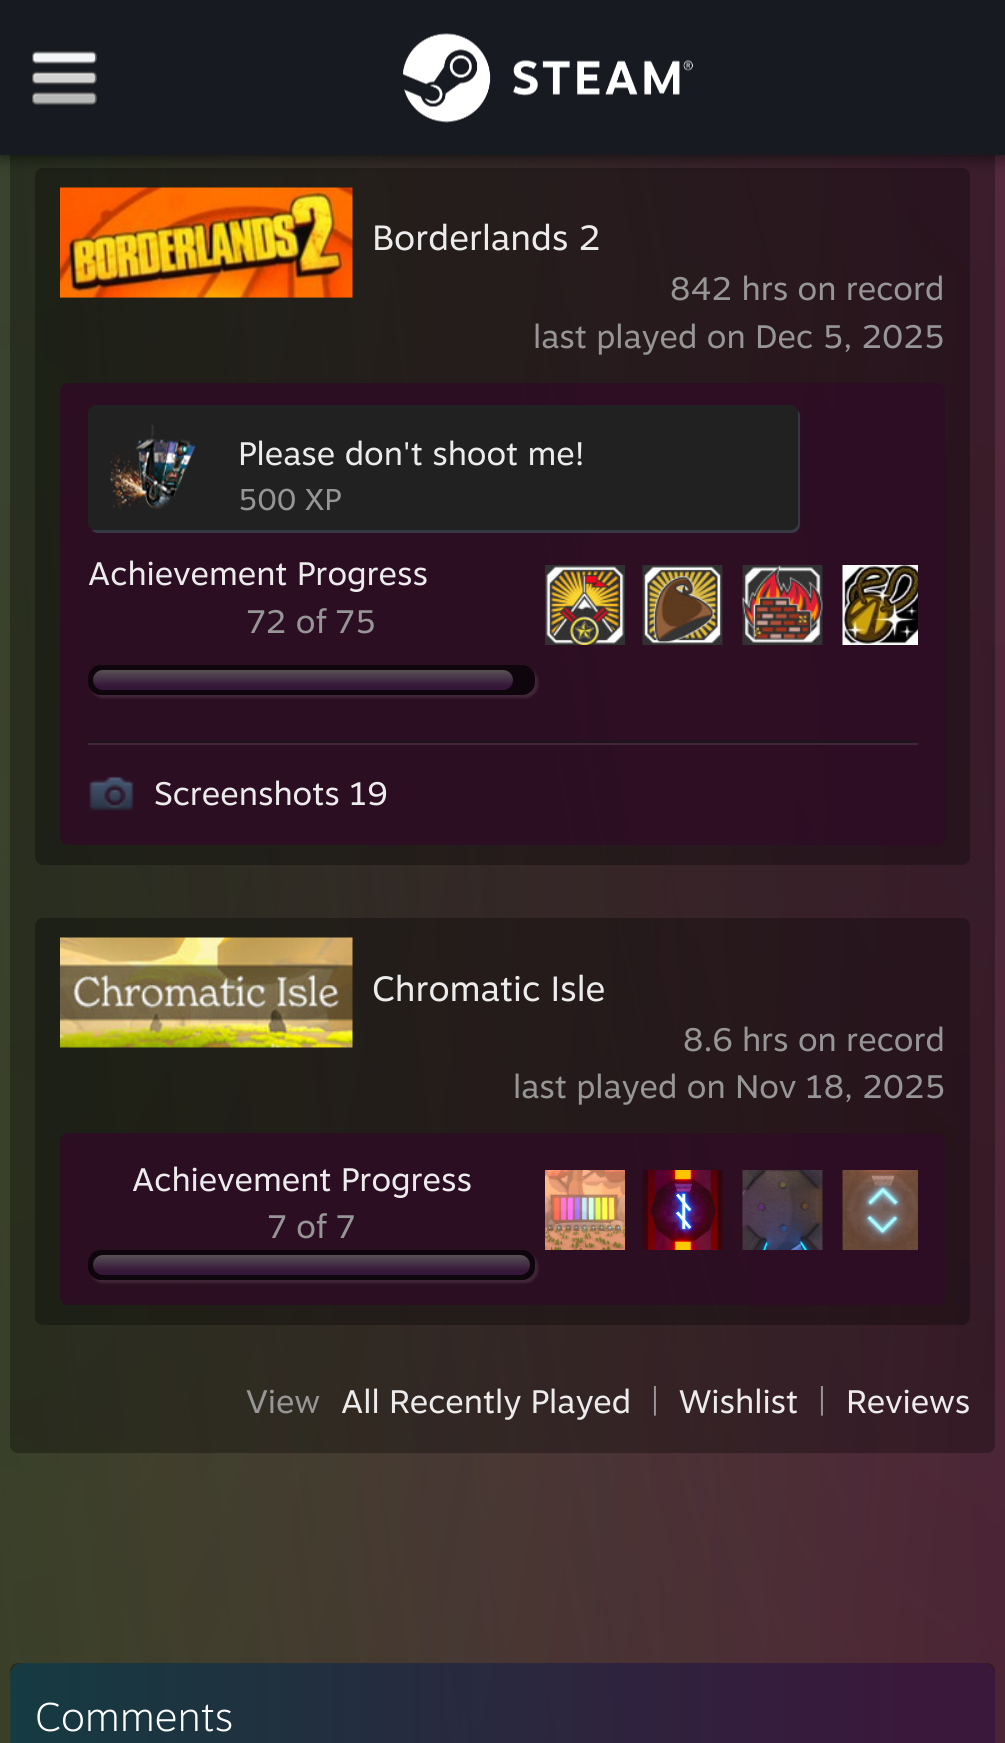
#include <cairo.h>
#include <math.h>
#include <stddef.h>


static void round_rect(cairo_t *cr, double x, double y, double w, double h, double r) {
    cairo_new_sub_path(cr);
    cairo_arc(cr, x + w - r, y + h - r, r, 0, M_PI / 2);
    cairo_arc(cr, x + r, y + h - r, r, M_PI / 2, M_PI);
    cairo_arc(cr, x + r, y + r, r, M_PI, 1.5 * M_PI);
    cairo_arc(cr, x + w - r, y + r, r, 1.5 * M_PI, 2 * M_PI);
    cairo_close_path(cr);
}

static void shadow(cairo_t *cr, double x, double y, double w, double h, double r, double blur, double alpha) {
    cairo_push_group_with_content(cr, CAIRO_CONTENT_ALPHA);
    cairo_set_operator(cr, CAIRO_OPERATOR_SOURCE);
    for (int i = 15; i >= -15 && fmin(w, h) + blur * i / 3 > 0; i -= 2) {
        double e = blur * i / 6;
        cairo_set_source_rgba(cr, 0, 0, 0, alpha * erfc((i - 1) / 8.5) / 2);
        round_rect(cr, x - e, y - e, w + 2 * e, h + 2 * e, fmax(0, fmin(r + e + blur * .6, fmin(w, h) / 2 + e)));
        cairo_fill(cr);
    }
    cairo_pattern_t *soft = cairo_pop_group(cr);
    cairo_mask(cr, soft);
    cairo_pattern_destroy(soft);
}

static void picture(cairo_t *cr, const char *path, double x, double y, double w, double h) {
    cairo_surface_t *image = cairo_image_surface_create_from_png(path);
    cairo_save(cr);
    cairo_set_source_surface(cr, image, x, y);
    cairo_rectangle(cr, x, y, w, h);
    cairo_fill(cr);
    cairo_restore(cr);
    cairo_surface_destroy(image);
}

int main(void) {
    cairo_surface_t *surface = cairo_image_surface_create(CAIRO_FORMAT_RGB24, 1005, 1743);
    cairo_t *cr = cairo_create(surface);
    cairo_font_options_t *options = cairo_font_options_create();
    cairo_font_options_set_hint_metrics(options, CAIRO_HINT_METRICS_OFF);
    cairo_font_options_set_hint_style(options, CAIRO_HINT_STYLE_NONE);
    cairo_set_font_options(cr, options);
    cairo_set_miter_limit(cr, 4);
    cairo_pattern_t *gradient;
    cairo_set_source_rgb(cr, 1, 1, 1);
    cairo_paint(cr);
    gradient = cairo_pattern_create_radial(0, 0, 0, 0, 0, 1);
    cairo_pattern_set_matrix(gradient, &(cairo_matrix_t){1.0 / 1500, 0, 0, 1.0 / 11090, -1.0 * 0 / 1500, -1.0 * 3865 / 11090});
    cairo_pattern_add_color_stop_rgba(gradient, 0, 0.271, 0.165, 0.114, 1);
    cairo_pattern_add_color_stop_rgba(gradient, 1, 0.169, 0.047, 0.125, 1);
    cairo_set_source(cr, gradient);
    cairo_pattern_destroy(gradient);
    cairo_rectangle(cr, 0, 155, 1005, 1588);
    cairo_fill(cr);
    gradient = cairo_pattern_create_radial(0, 0, 0, 0, 0, 1);
    cairo_pattern_set_matrix(gradient, &(cairo_matrix_t){1.0 / 1500, 0, 0, 1.0 / 11090, -1.0 * 0 / 1500, -1.0 * -3565 / 11090});
    cairo_pattern_add_color_stop_rgba(gradient, 0, 0.035, 0.953, 0.388, 0.25);
    cairo_pattern_add_color_stop_rgba(gradient, 1, 0.035, 0.953, 0.388, 0);
    cairo_set_source(cr, gradient);
    cairo_pattern_destroy(gradient);
    cairo_rectangle(cr, 0, 155, 1005, 1588);
    cairo_fill(cr);
    gradient = cairo_pattern_create_radial(0, 0, 0, 0, 0, 1);
    cairo_pattern_set_matrix(gradient, &(cairo_matrix_t){1.0 / 1250, 0, 0, 1.0 / 9241, -1.0 * 1005 / 1250, -1.0 * -3565 / 9241});
    cairo_pattern_add_color_stop_rgba(gradient, 0, 0.973, 0.275, 0.706, 0.3);
    cairo_pattern_add_color_stop_rgba(gradient, 1, 0.973, 0.275, 0.706, 0);
    cairo_set_source(cr, gradient);
    cairo_pattern_destroy(gradient);
    cairo_rectangle(cr, 0, 155, 1005, 1588);
    cairo_fill(cr);
    cairo_set_source_rgba(cr, 0, 0, 0, 0.3);
    round_rect(cr, 10, -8, 985, 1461, 8);
    cairo_fill(cr);
    round_rect(cr, 35, 168, 935, 697, 8);
    cairo_fill(cr);
    cairo_set_source_rgb(cr, 0, 0, 0);
    shadow(cr, 0, 0, 1005, 155, 0, 9, 0.75);
    cairo_set_source_rgb(cr, 0.09, 0.102, 0.129);
    cairo_rectangle(cr, 0, 0, 1005, 155);
    cairo_fill(cr);
    picture(cr, "img1.png", 32, 51, 65, 54);
    picture(cr, "img2.png", 403, 33, 290, 90);
    picture(cr, "img3.png", 60, 187, 293, 111);
    cairo_select_font_face(cr, "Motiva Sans", CAIRO_FONT_SLANT_NORMAL, CAIRO_FONT_WEIGHT_NORMAL);
    cairo_set_font_size(cr, 35);
    cairo_set_source_rgb(cr, 0.922, 0.922, 0.922);
    cairo_move_to(cr, 372, 250);
    cairo_show_text(cr, "Borderlands 2");
    cairo_set_font_size(cr, 32.5);
    cairo_set_source_rgb(cr, 0.588, 0.588, 0.588);
    cairo_move_to(cr, 670, 300);
    cairo_show_text(cr, "842 hrs on record");
    cairo_move_to(cr, 533, 348);
    cairo_show_text(cr, "last played on Dec 5, 2025");
    cairo_set_source_rgba(cr, 0.18, 0.051, 0.141, 0.93);
    round_rect(cr, 60, 383, 885, 462, 8);
    cairo_fill(cr);
    cairo_set_source_rgb(cr, 0.204, 0.224, 0.267);
    cairo_new_path(cr);
    cairo_move_to(cr, 91, 529);
    cairo_curve_to(cr, 92, 531, 95, 533, 98, 533);
    cairo_line_to(cr, 792, 533);
    cairo_curve_to(cr, 796, 533, 800, 529, 800, 525);
    cairo_line_to(cr, 800, 416);
    cairo_curve_to(cr, 800, 413, 799, 411, 797, 410);
    cairo_line_to(cr, 798, 412);
    cairo_line_to(cr, 798, 522);
    cairo_curve_to(cr, 798, 527, 794, 530, 790, 530);
    cairo_line_to(cr, 95, 530);
    cairo_curve_to(cr, 94, 530, 92, 530, 91, 529);
    cairo_close_path(cr);
    cairo_fill(cr);
    cairo_set_source_rgb(cr, 0.133, 0.133, 0.137);
    round_rect(cr, 88, 405, 710, 125, 8);
    cairo_fill(cr);
    cairo_set_source_rgb(cr, 0.129, 0.129, 0.129);
    cairo_new_path(cr);
    cairo_move_to(cr, 96, 405);
    cairo_line_to(cr, 790, 405);
    cairo_curve_to(cr, 794, 405, 798, 409, 798, 413);
    cairo_line_to(cr, 798, 522);
    cairo_curve_to(cr, 798, 526, 794, 530, 790, 530);
    cairo_line_to(cr, 96, 530);
    cairo_curve_to(cr, 92, 530, 88, 526, 88, 522);
    cairo_line_to(cr, 88, 413);
    cairo_curve_to(cr, 88, 409, 92, 405, 96, 405);
    cairo_close_path(cr);
    cairo_fill(cr);
    picture(cr, "img4.png", 109, 424, 87, 85);
    cairo_set_source_rgb(cr, 0.922, 0.922, 0.922);
    cairo_move_to(cr, 238, 465);
    cairo_show_text(cr, "Please don't shoot me!");
    cairo_set_font_size(cr, 30);
    cairo_set_source_rgb(cr, 0.588, 0.588, 0.588);
    cairo_move_to(cr, 238, 510);
    cairo_show_text(cr, "500 XP");
    cairo_set_font_size(cr, 32.5);
    cairo_set_source_rgb(cr, 0.922, 0.922, 0.922);
    cairo_move_to(cr, 88, 585);
    cairo_show_text(cr, "Achievement Progress");
    cairo_set_source_rgb(cr, 0.588, 0.588, 0.588);
    cairo_move_to(cr, 247, 633);
    cairo_show_text(cr, "72 of 75");
    cairo_save(cr);
    cairo_set_fill_rule(cr, CAIRO_FILL_RULE_EVEN_ODD);
    cairo_new_path(cr);
    cairo_move_to(cr, 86, 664);
    cairo_line_to(cr, 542, 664);
    cairo_line_to(cr, 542, 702);
    cairo_line_to(cr, 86, 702);
    cairo_close_path(cr);
    cairo_move_to(cr, 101, 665);
    cairo_line_to(cr, 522, 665);
    cairo_curve_to(cr, 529, 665, 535, 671, 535, 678);
    cairo_line_to(cr, 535, 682);
    cairo_curve_to(cr, 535, 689, 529, 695, 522, 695);
    cairo_line_to(cr, 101, 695);
    cairo_curve_to(cr, 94, 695, 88, 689, 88, 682);
    cairo_line_to(cr, 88, 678);
    cairo_curve_to(cr, 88, 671, 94, 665, 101, 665);
    cairo_close_path(cr);
    cairo_clip(cr);
    cairo_set_source_rgb(cr, 1, 1, 1);
    shadow(cr, 90, 668, 448, 30, 13, 1, 0.1);
    cairo_restore(cr);
    cairo_set_source_rgba(cr, 0, 0, 0, 0.3);
    round_rect(cr, 88, 665, 447, 30, 13);
    cairo_fill(cr);
    cairo_set_source_rgba(cr, 0, 0, 0, 0.5);
    cairo_new_path(cr);
    cairo_move_to(cr, 101, 665);
    cairo_line_to(cr, 522, 665);
    cairo_curve_to(cr, 529, 665, 535, 671, 535, 678);
    cairo_line_to(cr, 535, 682);
    cairo_curve_to(cr, 535, 689, 529, 695, 522, 695);
    cairo_line_to(cr, 101, 695);
    cairo_curve_to(cr, 94, 695, 88, 689, 88, 682);
    cairo_line_to(cr, 88, 678);
    cairo_curve_to(cr, 88, 671, 94, 665, 101, 665);
    cairo_close_path(cr);
    cairo_fill(cr);
    gradient = cairo_pattern_create_linear(303, 670, 303, 690);
    cairo_pattern_add_color_stop_rgba(gradient, 0, 0.345, 0.314, 0.333, 1);
    cairo_pattern_add_color_stop_rgba(gradient, 0.8, 0.212, 0.09, 0.227, 1);
    cairo_set_source(cr, gradient);
    cairo_pattern_destroy(gradient);
    round_rect(cr, 93, 670, 420, 20, 10);
    cairo_fill(cr);
    picture(cr, "img5.png", 545, 565, 80, 80);
    picture(cr, "img6.png", 642, 565, 81, 80);
    picture(cr, "img7.png", 742, 565, 81, 80);
    picture(cr, "img8.png", 842, 565, 76, 80);
    cairo_set_source_rgb(cr, 0.259, 0.149, 0.224);
    cairo_rectangle(cr, 88, 743, 830, 2);
    cairo_fill(cr);
    cairo_set_source_rgb(cr, 0.129, 0.075, 0.114);
    cairo_rectangle(cr, 88, 740, 830, 3);
    cairo_fill(cr);
    picture(cr, "img9.png", 89, 776, 45, 35);
    cairo_set_source_rgb(cr, 0.922, 0.922, 0.922);
    cairo_move_to(cr, 154, 805);
    cairo_show_text(cr, "Screenshots 19");
    cairo_set_source_rgba(cr, 0, 0, 0, 0.3);
    round_rect(cr, 35, 918, 935, 407, 8);
    cairo_fill(cr);
    picture(cr, "img10.png", 60, 937, 293, 111);
    cairo_set_font_size(cr, 35);
    cairo_set_source_rgb(cr, 0.922, 0.922, 0.922);
    cairo_move_to(cr, 372, 1001);
    cairo_show_text(cr, "Chromatic Isle");
    cairo_set_font_size(cr, 32.5);
    cairo_set_source_rgb(cr, 0.588, 0.588, 0.588);
    cairo_move_to(cr, 683, 1051);
    cairo_show_text(cr, "8.6 hrs on record");
    cairo_move_to(cr, 513, 1098);
    cairo_show_text(cr, "last played on Nov 18, 2025");
    cairo_set_source_rgba(cr, 0.18, 0.051, 0.141, 0.93);
    round_rect(cr, 60, 1133, 885, 172, 8);
    cairo_fill(cr);
    cairo_set_source_rgb(cr, 0.922, 0.922, 0.922);
    cairo_move_to(cr, 132, 1191);
    cairo_show_text(cr, "Achievement Progress");
    cairo_set_source_rgb(cr, 0.588, 0.588, 0.588);
    cairo_move_to(cr, 268, 1238);
    cairo_show_text(cr, "7 of 7");
    cairo_save(cr);
    cairo_set_fill_rule(cr, CAIRO_FILL_RULE_EVEN_ODD);
    cairo_new_path(cr);
    cairo_move_to(cr, 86, 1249);
    cairo_line_to(cr, 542, 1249);
    cairo_line_to(cr, 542, 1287);
    cairo_line_to(cr, 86, 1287);
    cairo_close_path(cr);
    cairo_move_to(cr, 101, 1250);
    cairo_line_to(cr, 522, 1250);
    cairo_curve_to(cr, 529, 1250, 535, 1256, 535, 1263);
    cairo_line_to(cr, 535, 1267);
    cairo_curve_to(cr, 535, 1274, 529, 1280, 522, 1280);
    cairo_line_to(cr, 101, 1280);
    cairo_curve_to(cr, 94, 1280, 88, 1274, 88, 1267);
    cairo_line_to(cr, 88, 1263);
    cairo_curve_to(cr, 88, 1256, 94, 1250, 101, 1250);
    cairo_close_path(cr);
    cairo_clip(cr);
    cairo_set_source_rgb(cr, 1, 1, 1);
    shadow(cr, 90, 1253, 448, 30, 13, 1, 0.1);
    cairo_restore(cr);
    cairo_set_source_rgba(cr, 0, 0, 0, 0.3);
    round_rect(cr, 88, 1250, 447, 30, 13);
    cairo_fill(cr);
    cairo_set_source_rgba(cr, 0, 0, 0, 0.5);
    cairo_new_path(cr);
    cairo_move_to(cr, 101, 1250);
    cairo_line_to(cr, 522, 1250);
    cairo_curve_to(cr, 529, 1250, 535, 1256, 535, 1263);
    cairo_line_to(cr, 535, 1267);
    cairo_curve_to(cr, 535, 1274, 529, 1280, 522, 1280);
    cairo_line_to(cr, 101, 1280);
    cairo_curve_to(cr, 94, 1280, 88, 1274, 88, 1267);
    cairo_line_to(cr, 88, 1263);
    cairo_curve_to(cr, 88, 1256, 94, 1250, 101, 1250);
    cairo_close_path(cr);
    cairo_fill(cr);
    gradient = cairo_pattern_create_linear(311, 1255, 311, 1275);
    cairo_pattern_add_color_stop_rgba(gradient, 0, 0.345, 0.314, 0.333, 1);
    cairo_pattern_add_color_stop_rgba(gradient, 0.8, 0.212, 0.09, 0.227, 1);
    cairo_set_source(cr, gradient);
    cairo_pattern_destroy(gradient);
    round_rect(cr, 93, 1255, 437, 20, 10);
    cairo_fill(cr);
    picture(cr, "img11.png", 545, 1170, 80, 80);
    picture(cr, "img12.png", 642, 1170, 81, 80);
    picture(cr, "img13.png", 742, 1170, 81, 80);
    picture(cr, "img14.png", 842, 1170, 76, 80);
    cairo_set_source_rgb(cr, 0.588, 0.588, 0.588);
    cairo_move_to(cr, 246, 1413);
    cairo_show_text(cr, "View");
    cairo_set_source_rgb(cr, 0.922, 0.922, 0.922);
    cairo_move_to(cr, 341, 1413);
    cairo_show_text(cr, "All Recently Played");
    cairo_set_source_rgb(cr, 0.588, 0.588, 0.588);
    cairo_move_to(cr, 651, 1413);
    cairo_show_text(cr, "|");
    cairo_set_source_rgb(cr, 0.922, 0.922, 0.922);
    cairo_move_to(cr, 679, 1413);
    cairo_show_text(cr, "Wishlist");
    cairo_set_source_rgb(cr, 0.588, 0.588, 0.588);
    cairo_move_to(cr, 818, 1413);
    cairo_show_text(cr, "|");
    cairo_set_source_rgb(cr, 0.922, 0.922, 0.922);
    cairo_move_to(cr, 846, 1413);
    cairo_show_text(cr, "Reviews");
    cairo_set_source_rgba(cr, 0, 0, 0, 0.3);
    round_rect(cr, 10, 1663, 985, 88, 8);
    cairo_fill(cr);
    gradient = cairo_pattern_create_linear(10, 1715, 995, 1715);
    cairo_pattern_add_color_stop_rgba(gradient, 0, 0.078, 0.235, 0.267, 0.93);
    cairo_pattern_add_color_stop_rgba(gradient, 0.9, 0.224, 0.094, 0.239, 0.93);
    cairo_set_source(cr, gradient);
    cairo_pattern_destroy(gradient);
    cairo_new_path(cr);
    cairo_move_to(cr, 23, 1663);
    cairo_line_to(cr, 982, 1663);
    cairo_curve_to(cr, 989, 1663, 995, 1669, 995, 1676);
    cairo_line_to(cr, 995, 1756);
    cairo_line_to(cr, 10, 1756);
    cairo_line_to(cr, 10, 1676);
    cairo_curve_to(cr, 10, 1669, 16, 1663, 23, 1663);
    cairo_close_path(cr);
    cairo_fill(cr);
    cairo_select_font_face(cr, "Motiva Sans Thin", CAIRO_FONT_SLANT_NORMAL, CAIRO_FONT_WEIGHT_NORMAL);
    cairo_set_font_size(cr, 40);
    cairo_set_source_rgb(cr, 1, 1, 1);
    cairo_move_to(cr, 35, 1731);
    cairo_show_text(cr, "Comments");
    cairo_surface_write_to_png(surface, "page.png");
    cairo_font_options_destroy(options);
    cairo_destroy(cr);
    cairo_surface_destroy(surface);
    return 0;
}
